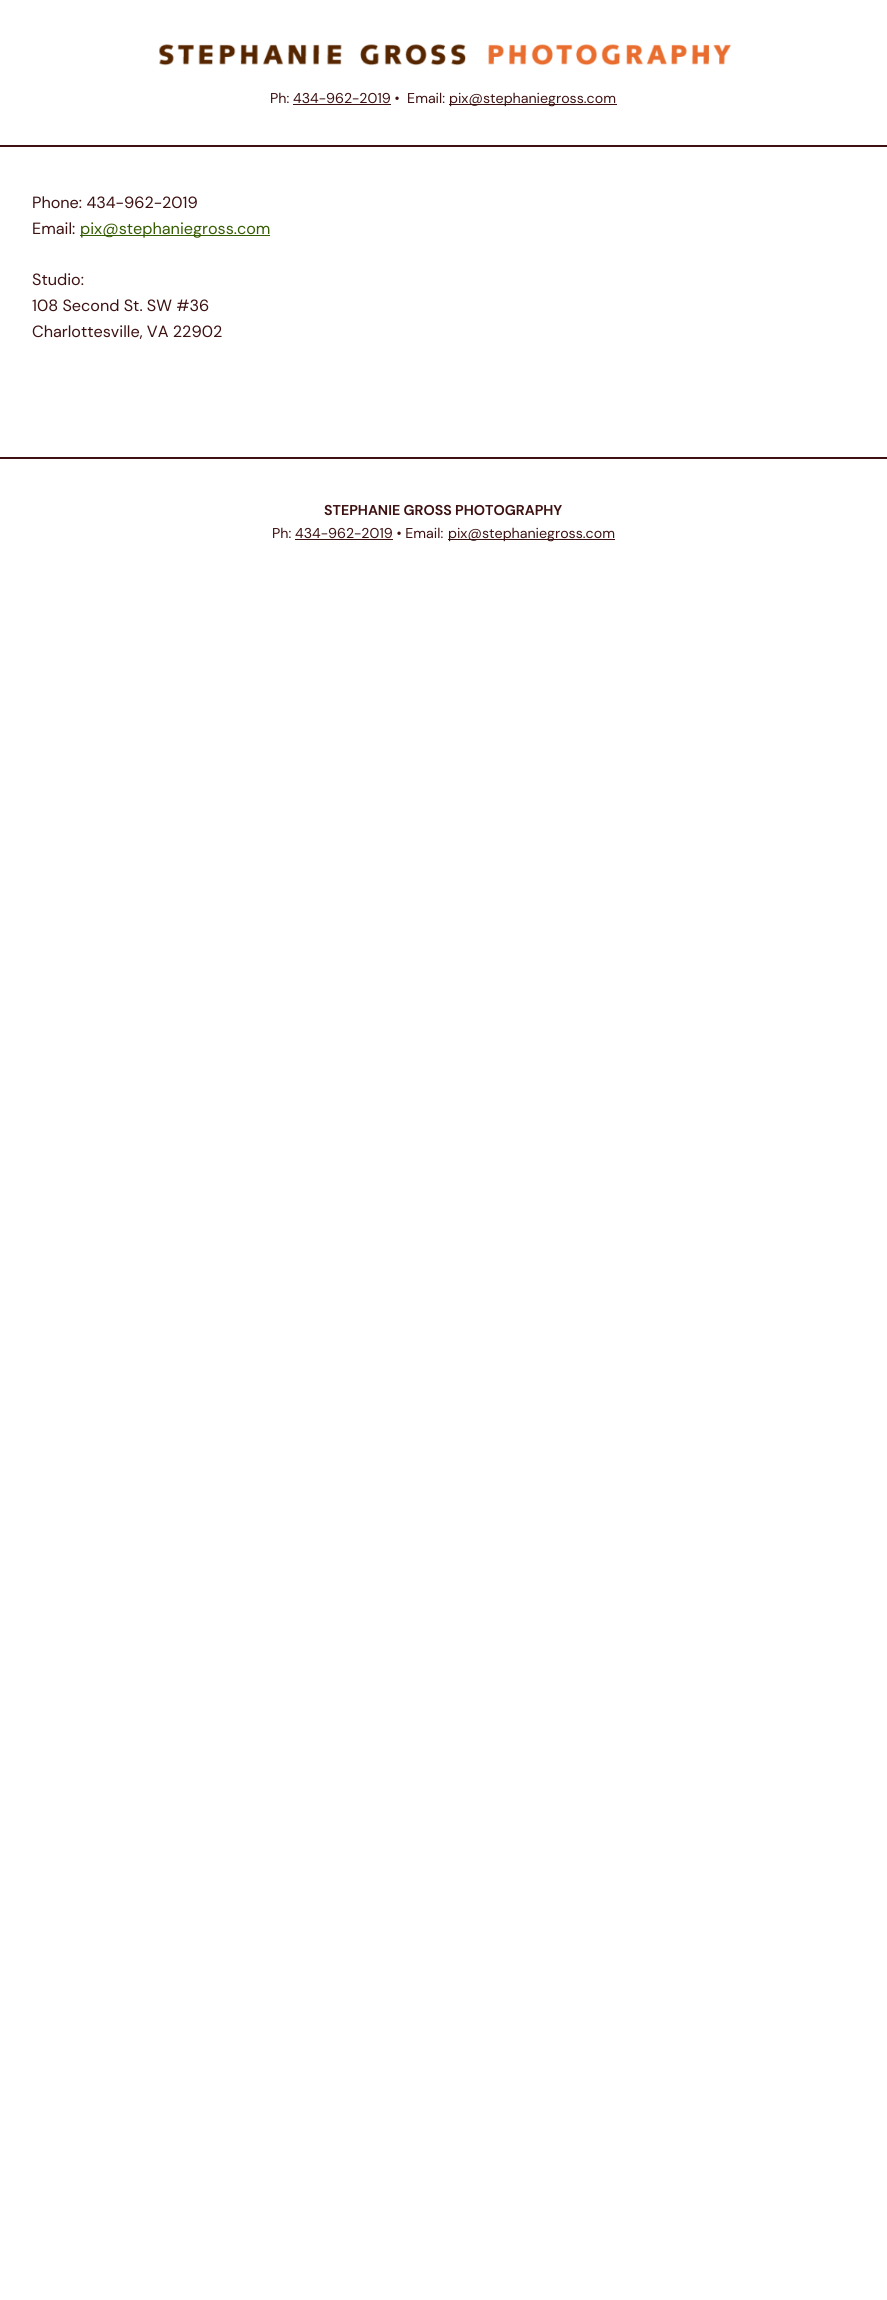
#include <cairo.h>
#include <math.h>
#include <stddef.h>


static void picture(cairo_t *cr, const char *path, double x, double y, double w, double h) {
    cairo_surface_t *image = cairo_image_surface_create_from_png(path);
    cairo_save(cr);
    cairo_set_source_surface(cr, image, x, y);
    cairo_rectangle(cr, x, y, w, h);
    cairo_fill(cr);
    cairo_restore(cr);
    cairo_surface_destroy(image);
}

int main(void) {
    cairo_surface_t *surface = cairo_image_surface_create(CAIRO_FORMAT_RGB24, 887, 2300);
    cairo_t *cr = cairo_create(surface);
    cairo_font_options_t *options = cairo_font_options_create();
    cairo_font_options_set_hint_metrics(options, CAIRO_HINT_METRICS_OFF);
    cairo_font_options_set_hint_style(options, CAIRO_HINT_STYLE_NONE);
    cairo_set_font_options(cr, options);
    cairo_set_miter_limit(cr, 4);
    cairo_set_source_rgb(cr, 1, 1, 1);
    cairo_paint(cr);
    picture(cr, "img1.png", 159, 44, 573, 22);
    cairo_select_font_face(cr, "DM Sans", CAIRO_FONT_SLANT_NORMAL, CAIRO_FONT_WEIGHT_NORMAL);
    cairo_set_font_size(cr, 14.25);
    cairo_set_source_rgb(cr, 0.239, 0.067, 0.067);
    cairo_move_to(cr, 270, 103);
    cairo_show_text(cr, "Ph: 434-962-2019 •  Email:");
    cairo_rectangle(cr, 449, 104, 168, 1);
    cairo_fill(cr);
    cairo_move_to(cr, 449, 103);
    cairo_show_text(cr, "pix@stephaniegross.com");
    cairo_rectangle(cr, 293, 104, 98, 1);
    cairo_fill(cr);
    cairo_rectangle(cr, 0, 145, 887, 2);
    cairo_fill(cr);
    cairo_set_font_size(cr, 16.25);
    cairo_move_to(cr, 32, 208);
    cairo_show_text(cr, "Phone: 434-962-2019");
    cairo_move_to(cr, 32, 234);
    cairo_show_text(cr, "Email:");
    cairo_set_source_rgb(cr, 0.204, 0.361, 0);
    cairo_rectangle(cr, 80, 235, 190, 1);
    cairo_fill(cr);
    cairo_move_to(cr, 80, 234);
    cairo_show_text(cr, "pix@stephaniegross.com");
    cairo_set_source_rgb(cr, 0.239, 0.067, 0.067);
    cairo_move_to(cr, 32, 285);
    cairo_show_text(cr, "Studio:");
    cairo_move_to(cr, 32, 311);
    cairo_show_text(cr, "108 Second St. SW #36");
    cairo_move_to(cr, 32, 337);
    cairo_show_text(cr, "Charlottesville, VA 22902");
    cairo_rectangle(cr, 0, 457, 887, 2);
    cairo_fill(cr);
    cairo_select_font_face(cr, "DM Sans", CAIRO_FONT_SLANT_NORMAL, CAIRO_FONT_WEIGHT_BOLD);
    cairo_set_font_size(cr, 14.25);
    cairo_move_to(cr, 324, 515);
    cairo_show_text(cr, "STEPHANIE GROSS PHOTOGRAPHY");
    cairo_select_font_face(cr, "DM Sans", CAIRO_FONT_SLANT_NORMAL, CAIRO_FONT_WEIGHT_NORMAL);
    cairo_move_to(cr, 272, 538);
    cairo_show_text(cr, "Ph: 434-962-2019 • Email:");
    cairo_rectangle(cr, 448, 539, 167, 1);
    cairo_fill(cr);
    cairo_move_to(cr, 448, 538);
    cairo_show_text(cr, "pix@stephaniegross.com");
    cairo_rectangle(cr, 295, 539, 98, 1);
    cairo_fill(cr);
    cairo_surface_write_to_png(surface, "page.png");
    cairo_font_options_destroy(options);
    cairo_destroy(cr);
    cairo_surface_destroy(surface);
    return 0;
}
